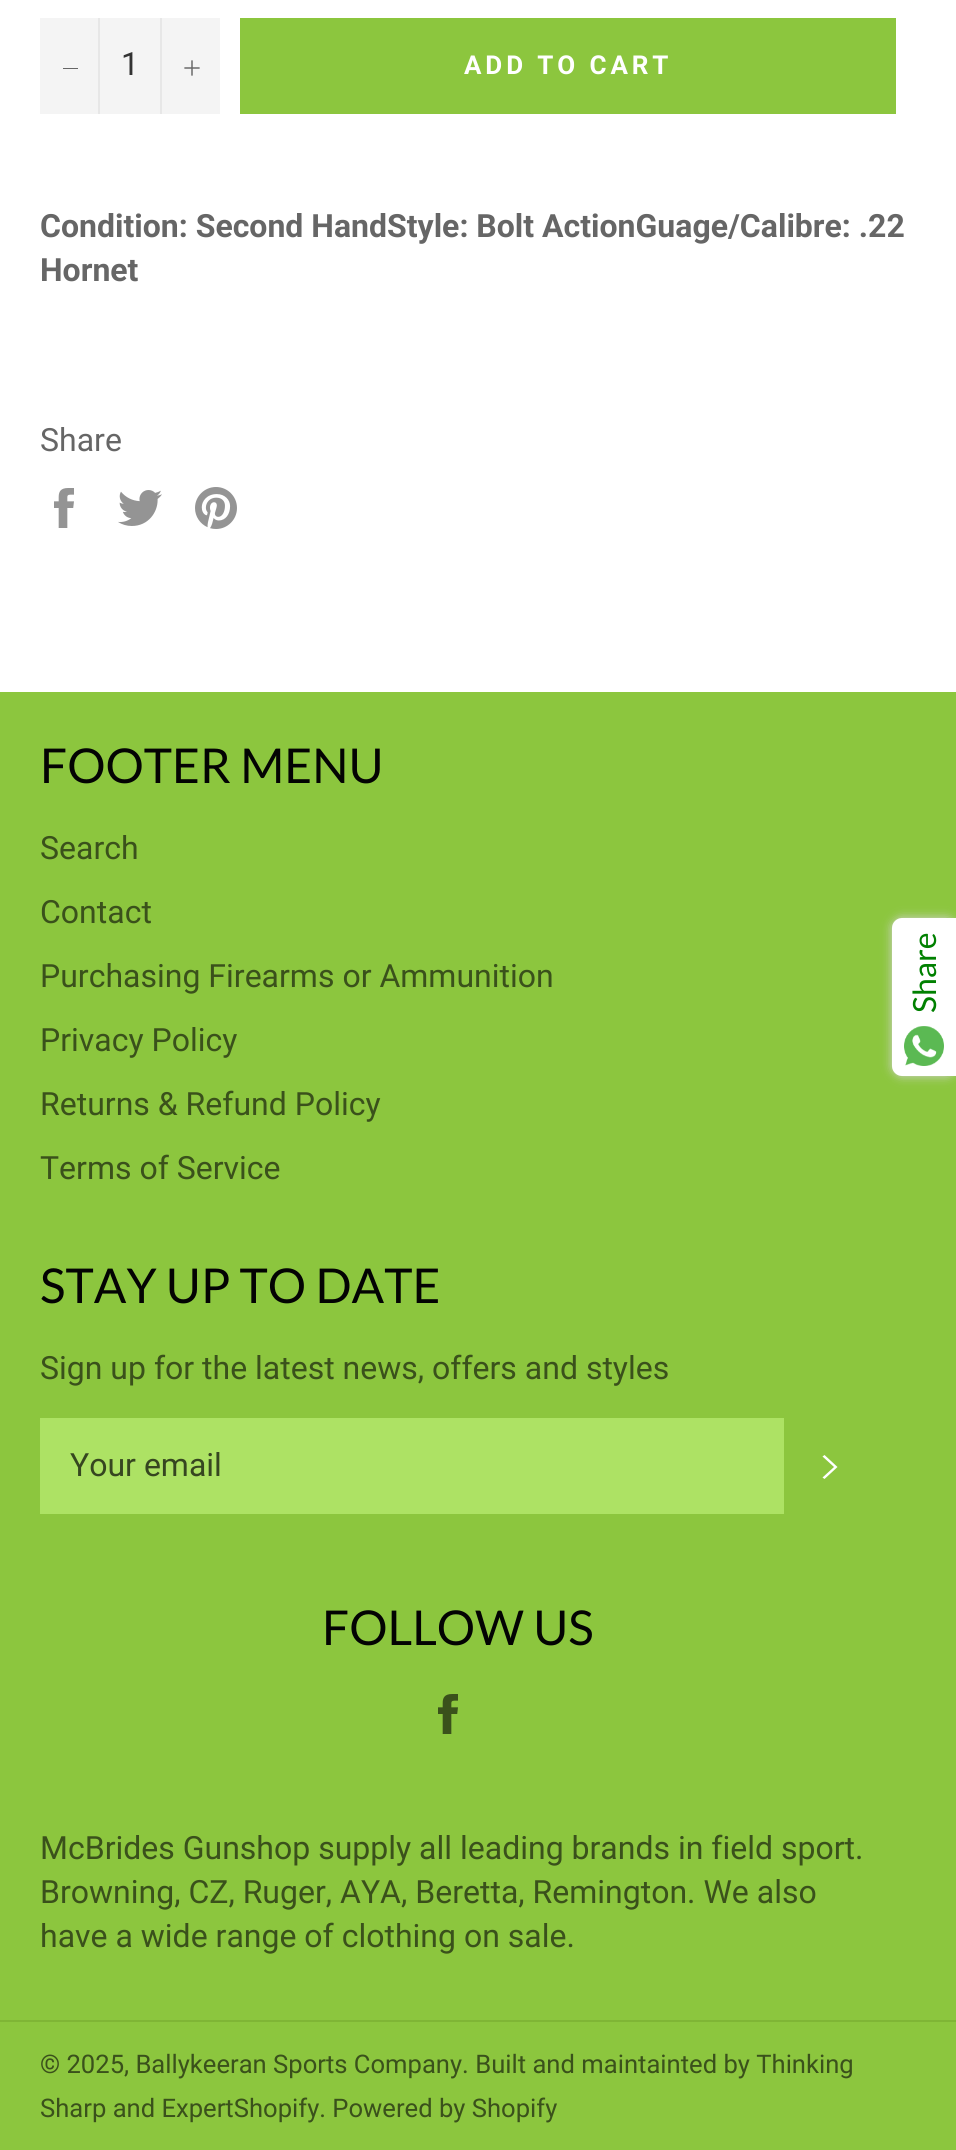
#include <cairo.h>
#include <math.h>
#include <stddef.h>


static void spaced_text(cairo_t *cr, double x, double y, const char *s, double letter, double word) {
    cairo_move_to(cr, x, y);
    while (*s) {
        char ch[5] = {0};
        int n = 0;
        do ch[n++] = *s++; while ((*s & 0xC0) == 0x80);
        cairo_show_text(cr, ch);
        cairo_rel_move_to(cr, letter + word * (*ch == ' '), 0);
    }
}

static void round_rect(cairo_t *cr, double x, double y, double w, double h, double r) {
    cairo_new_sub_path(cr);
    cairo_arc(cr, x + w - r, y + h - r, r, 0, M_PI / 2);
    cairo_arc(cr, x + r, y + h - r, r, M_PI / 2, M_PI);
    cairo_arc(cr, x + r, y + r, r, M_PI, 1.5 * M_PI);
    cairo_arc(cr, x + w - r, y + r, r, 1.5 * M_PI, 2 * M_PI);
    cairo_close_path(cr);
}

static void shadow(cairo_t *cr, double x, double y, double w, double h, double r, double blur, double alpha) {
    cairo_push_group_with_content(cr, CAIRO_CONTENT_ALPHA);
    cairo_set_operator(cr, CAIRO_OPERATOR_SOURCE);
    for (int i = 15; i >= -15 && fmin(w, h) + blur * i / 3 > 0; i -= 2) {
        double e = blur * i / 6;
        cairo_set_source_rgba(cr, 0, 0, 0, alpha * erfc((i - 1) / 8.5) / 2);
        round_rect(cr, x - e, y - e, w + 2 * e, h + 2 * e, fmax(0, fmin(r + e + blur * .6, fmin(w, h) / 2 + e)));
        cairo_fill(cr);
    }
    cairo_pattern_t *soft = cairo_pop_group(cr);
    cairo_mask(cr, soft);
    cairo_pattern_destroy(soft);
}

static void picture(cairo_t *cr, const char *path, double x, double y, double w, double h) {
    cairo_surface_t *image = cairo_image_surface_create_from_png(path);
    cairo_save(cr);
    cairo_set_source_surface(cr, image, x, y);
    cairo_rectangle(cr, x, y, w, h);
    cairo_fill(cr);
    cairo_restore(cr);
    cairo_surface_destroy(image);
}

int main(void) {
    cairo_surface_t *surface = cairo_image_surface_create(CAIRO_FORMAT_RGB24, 956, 2150);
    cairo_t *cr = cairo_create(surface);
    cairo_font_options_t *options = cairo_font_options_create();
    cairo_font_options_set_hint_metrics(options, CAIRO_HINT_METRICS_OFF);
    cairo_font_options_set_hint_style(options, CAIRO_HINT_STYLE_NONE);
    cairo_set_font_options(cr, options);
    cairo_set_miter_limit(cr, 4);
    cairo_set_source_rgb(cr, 1, 1, 1);
    cairo_paint(cr);
    cairo_set_source_rgb(cr, 0.957, 0.957, 0.957);
    cairo_rectangle(cr, 40, 18, 180, 96);
    cairo_fill(cr);
    cairo_set_source_rgb(cr, 0.906, 0.906, 0.906);
    cairo_rectangle(cr, 98, 18, 2, 96);
    cairo_fill(cr);
    cairo_set_source_rgb(cr, 0.4, 0.4, 0.4);
    cairo_rectangle(cr, 63, 68, 15, 1);
    cairo_fill(cr);
    cairo_select_font_face(cr, "Roboto", CAIRO_FONT_SLANT_NORMAL, CAIRO_FONT_WEIGHT_NORMAL);
    cairo_set_font_size(cr, 32);
    cairo_set_source_rgb(cr, 0.2, 0.2, 0.2);
    cairo_move_to(cr, 121, 75);
    cairo_show_text(cr, "1");
    cairo_set_source_rgb(cr, 0.906, 0.906, 0.906);
    cairo_rectangle(cr, 160, 18, 2, 96);
    cairo_fill(cr);
    picture(cr, "img1.png", 184, 60, 16, 16);
    cairo_set_source_rgb(cr, 0.549, 0.776, 0.243);
    cairo_rectangle(cr, 240, 18, 656, 96);
    cairo_fill(cr);
    cairo_select_font_face(cr, "Roboto", CAIRO_FONT_SLANT_NORMAL, CAIRO_FONT_WEIGHT_BOLD);
    cairo_set_font_size(cr, 26);
    cairo_set_source_rgb(cr, 1, 1, 1);
    spaced_text(cr, 464, 74, "ADD TO CART", 3.9, 0);
    cairo_set_font_size(cr, 32);
    cairo_set_source_rgb(cr, 0.4, 0.4, 0.4);
    cairo_move_to(cr, 40, 237);
    cairo_show_text(cr, "Condition: Second HandStyle: Bolt ActionGuage/Calibre: .22");
    cairo_move_to(cr, 40, 281);
    cairo_show_text(cr, "Hornet");
    cairo_select_font_face(cr, "Roboto", CAIRO_FONT_SLANT_NORMAL, CAIRO_FONT_WEIGHT_NORMAL);
    cairo_move_to(cr, 40, 451);
    cairo_show_text(cr, "Share");
    picture(cr, "img2.png", 54, 488, 20, 40);
    picture(cr, "img3.png", 118, 490, 44, 36);
    picture(cr, "img4.png", 195, 487, 42, 42);
    cairo_set_source_rgb(cr, 0.549, 0.776, 0.243);
    cairo_rectangle(cr, 0, 692, 956, 1458);
    cairo_fill(cr);
    cairo_select_font_face(cr, "Lato", CAIRO_FONT_SLANT_NORMAL, CAIRO_FONT_WEIGHT_NORMAL);
    cairo_set_font_size(cr, 48);
    cairo_set_source_rgb(cr, 0.012, 0.012, 0.012);
    cairo_move_to(cr, 40, 783);
    cairo_show_text(cr, "FOOTER MENU");
    cairo_select_font_face(cr, "Roboto", CAIRO_FONT_SLANT_NORMAL, CAIRO_FONT_WEIGHT_NORMAL);
    cairo_set_font_size(cr, 32);
    cairo_set_source_rgb(cr, 0.227, 0.318, 0.106);
    cairo_move_to(cr, 40, 859);
    cairo_show_text(cr, "Search");
    cairo_move_to(cr, 40, 923);
    cairo_show_text(cr, "Contact");
    cairo_move_to(cr, 40, 987);
    cairo_show_text(cr, "Purchasing Firearms or Ammunition");
    cairo_move_to(cr, 40, 1051);
    cairo_show_text(cr, "Privacy Policy");
    cairo_move_to(cr, 40, 1115);
    cairo_show_text(cr, "Returns & Refund Policy");
    cairo_move_to(cr, 40, 1179);
    cairo_show_text(cr, "Terms of Service");
    cairo_select_font_face(cr, "Lato", CAIRO_FONT_SLANT_NORMAL, CAIRO_FONT_WEIGHT_NORMAL);
    cairo_set_font_size(cr, 48);
    cairo_set_source_rgb(cr, 0.012, 0.012, 0.012);
    cairo_move_to(cr, 40, 1303);
    cairo_show_text(cr, "STAY UP TO DATE");
    cairo_select_font_face(cr, "Roboto", CAIRO_FONT_SLANT_NORMAL, CAIRO_FONT_WEIGHT_NORMAL);
    cairo_set_font_size(cr, 32);
    cairo_set_source_rgb(cr, 0.227, 0.318, 0.106);
    cairo_move_to(cr, 40, 1379);
    cairo_show_text(cr, "Sign up for the latest news, offers and styles");
    cairo_set_source_rgb(cr, 0.678, 0.886, 0.392);
    cairo_rectangle(cr, 40, 1418, 744, 96);
    cairo_fill(cr);
    cairo_set_source_rgb(cr, 0.212, 0.275, 0.125);
    cairo_move_to(cr, 70, 1476);
    cairo_show_text(cr, "Your email");
    cairo_set_source_rgb(cr, 1, 1, 1);
    cairo_new_path(cr);
    cairo_move_to(cr, 822.5, 1456.5);
    cairo_line_to(cr, 824.5, 1455);
    cairo_line_to(cr, 837.5, 1467);
    cairo_line_to(cr, 824.5, 1479);
    cairo_line_to(cr, 822.5, 1477.5);
    cairo_line_to(cr, 834, 1467);
    cairo_close_path(cr);
    cairo_fill(cr);
    cairo_select_font_face(cr, "Lato", CAIRO_FONT_SLANT_NORMAL, CAIRO_FONT_WEIGHT_NORMAL);
    cairo_set_font_size(cr, 48);
    cairo_set_source_rgb(cr, 0.012, 0.012, 0.012);
    cairo_move_to(cr, 322, 1645);
    cairo_show_text(cr, "FOLLOW US");
    picture(cr, "img5.png", 438, 1694, 20, 40);
    cairo_select_font_face(cr, "Roboto", CAIRO_FONT_SLANT_NORMAL, CAIRO_FONT_WEIGHT_NORMAL);
    cairo_set_font_size(cr, 32);
    cairo_set_source_rgb(cr, 0.227, 0.318, 0.106);
    cairo_move_to(cr, 40, 1859);
    cairo_show_text(cr, "McBrides Gunshop supply all leading brands in field sport.");
    cairo_move_to(cr, 40, 1903);
    cairo_show_text(cr, "Browning, CZ, Ruger, AYA, Beretta, Remington. We also");
    cairo_move_to(cr, 40, 1947);
    cairo_show_text(cr, "have a wide range of clothing on sale.");
    cairo_set_source_rgb(cr, 0.498, 0.71, 0.208);
    cairo_rectangle(cr, 0, 2020, 956, 2);
    cairo_fill(cr);
    cairo_set_font_size(cr, 25.6);
    cairo_set_source_rgb(cr, 0.227, 0.318, 0.106);
    cairo_move_to(cr, 40, 2073);
    cairo_show_text(cr, "© 2025, Ballykeeran Sports Company. Built and maintainted by Thinking");
    cairo_move_to(cr, 40, 2117);
    cairo_show_text(cr, "Sharp and ExpertShopify. Powered by Shopify");
    cairo_set_source_rgb(cr, 0.827, 0.827, 0.827);
    shadow(cr, 892, 918, 64, 158, 10, 5, 1);
    cairo_set_source_rgb(cr, 1, 1, 1);
    cairo_new_path(cr);
    cairo_move_to(cr, 902, 918);
    cairo_line_to(cr, 956, 918);
    cairo_line_to(cr, 956, 1076);
    cairo_line_to(cr, 902, 1076);
    cairo_curve_to(cr, 896.5, 1076, 892, 1071.5, 892, 1066);
    cairo_line_to(cr, 892, 928);
    cairo_curve_to(cr, 892, 922.5, 896.5, 918, 902, 918);
    cairo_close_path(cr);
    cairo_fill(cr);
    cairo_select_font_face(cr, "Lato", CAIRO_FONT_SLANT_NORMAL, CAIRO_FONT_WEIGHT_NORMAL);
    cairo_set_font_size(cr, 32);
    cairo_set_source_rgb(cr, 0, 0.502, 0);
    cairo_save(cr);
    cairo_translate(cr, 936, 1013);
    cairo_rotate(cr, -90 * M_PI / 180);
    cairo_move_to(cr, 0, 0);
    cairo_show_text(cr, "Share");
    cairo_restore(cr);
    picture(cr, "img6.png", 904, 1026, 40, 40);
    cairo_surface_write_to_png(surface, "page.png");
    cairo_font_options_destroy(options);
    cairo_destroy(cr);
    cairo_surface_destroy(surface);
    return 0;
}
